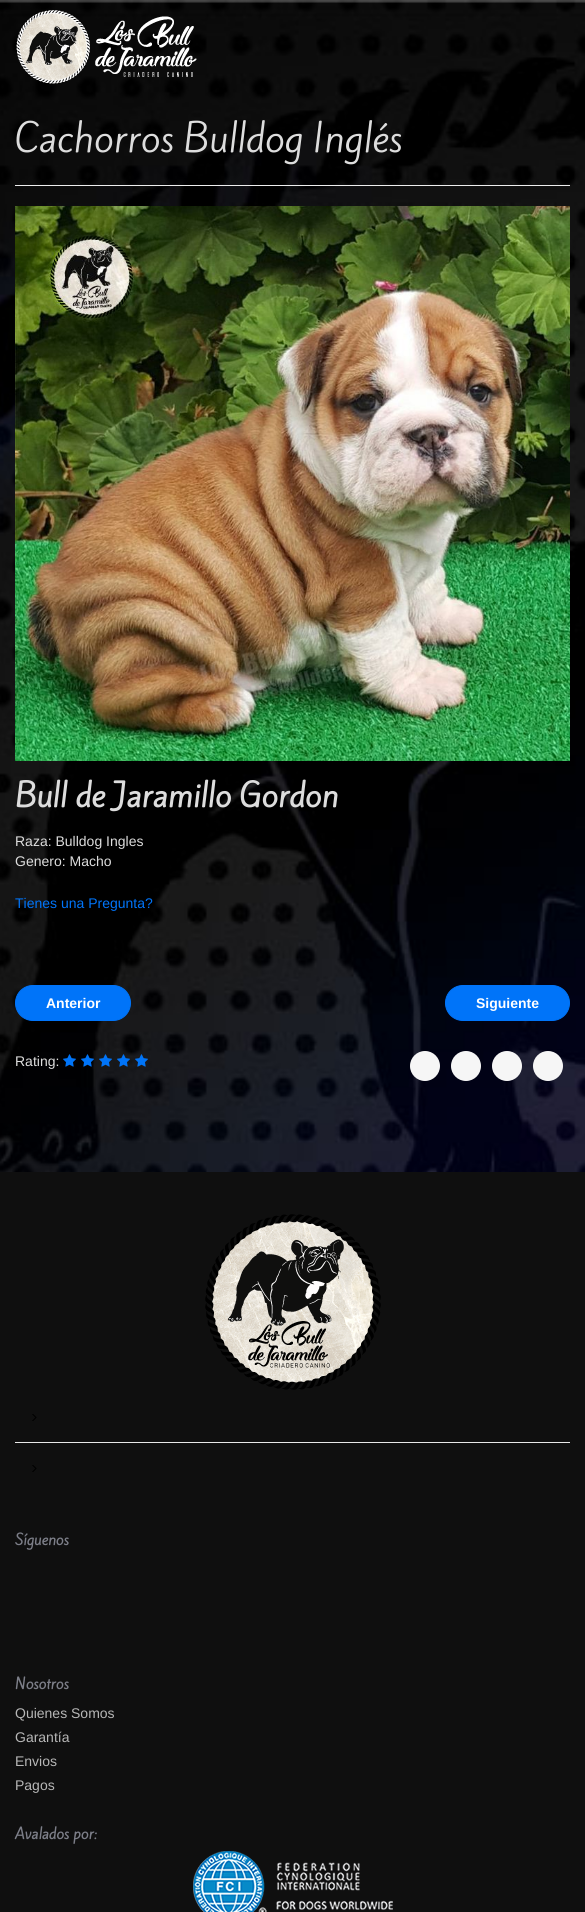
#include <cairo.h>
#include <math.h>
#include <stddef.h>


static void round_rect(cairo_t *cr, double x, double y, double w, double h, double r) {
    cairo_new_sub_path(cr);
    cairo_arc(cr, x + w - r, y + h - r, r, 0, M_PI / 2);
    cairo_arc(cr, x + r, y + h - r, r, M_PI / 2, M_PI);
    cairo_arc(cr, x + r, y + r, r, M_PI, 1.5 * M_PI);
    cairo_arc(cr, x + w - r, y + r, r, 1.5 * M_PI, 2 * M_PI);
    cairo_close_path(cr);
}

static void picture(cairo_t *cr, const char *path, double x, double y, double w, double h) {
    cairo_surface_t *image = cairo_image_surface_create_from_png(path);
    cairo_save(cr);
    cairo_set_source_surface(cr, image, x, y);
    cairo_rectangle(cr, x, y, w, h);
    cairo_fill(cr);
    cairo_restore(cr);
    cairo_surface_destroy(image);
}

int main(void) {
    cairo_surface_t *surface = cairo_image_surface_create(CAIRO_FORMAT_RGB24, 585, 1912);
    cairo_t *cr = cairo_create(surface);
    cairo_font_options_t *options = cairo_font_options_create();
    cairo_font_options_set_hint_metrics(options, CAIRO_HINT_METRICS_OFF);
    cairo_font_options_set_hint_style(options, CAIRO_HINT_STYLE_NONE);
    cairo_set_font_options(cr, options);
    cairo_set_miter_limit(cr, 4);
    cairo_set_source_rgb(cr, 1, 1, 1);
    cairo_paint(cr);
    picture(cr, "img1.png", 0, 0, 585, 1172);
    picture(cr, "img2.png", 16, 10, 181, 74);
    cairo_set_source_rgb(cr, 0.933, 0.933, 0.933);
    cairo_rectangle(cr, 15, 185, 555, 1);
    cairo_fill(cr);
    cairo_select_font_face(cr, "Kite One", CAIRO_FONT_SLANT_NORMAL, CAIRO_FONT_WEIGHT_NORMAL);
    cairo_set_font_size(cr, 36);
    cairo_set_source_rgb(cr, 0.867, 0.867, 0.867);
    cairo_move_to(cr, 15, 152);
    cairo_show_text(cr, "Cachorros Bulldog Inglés");
    picture(cr, "img3.png", 15, 206, 555, 555);
    cairo_select_font_face(cr, "Kite One", CAIRO_FONT_SLANT_NORMAL, CAIRO_FONT_WEIGHT_BOLD);
    cairo_set_font_size(cr, 30);
    cairo_move_to(cr, 15, 807);
    cairo_show_text(cr, "Bull de Jaramillo Gordon");
    cairo_select_font_face(cr, "Liberation Sans", CAIRO_FONT_SLANT_NORMAL, CAIRO_FONT_WEIGHT_NORMAL);
    cairo_set_font_size(cr, 14);
    cairo_move_to(cr, 15, 846);
    cairo_show_text(cr, "Raza: Bulldog Ingles");
    cairo_move_to(cr, 15, 866);
    cairo_show_text(cr, "Genero: Macho");
    cairo_set_source_rgb(cr, 0, 0.455, 0.973);
    cairo_move_to(cr, 15, 908);
    cairo_show_text(cr, "Tienes una Pregunta?");
    round_rect(cr, 15.5, 985.5, 115, 35, 17.5);
    cairo_fill_preserve(cr);
    cairo_set_line_width(cr, 1);
    cairo_stroke(cr);
    cairo_select_font_face(cr, "Liberation Sans", CAIRO_FONT_SLANT_NORMAL, CAIRO_FONT_WEIGHT_BOLD);
    cairo_set_source_rgb(cr, 1, 1, 1);
    cairo_move_to(cr, 46, 1008);
    cairo_show_text(cr, "Anterior");
    cairo_set_source_rgb(cr, 0, 0.455, 0.973);
    round_rect(cr, 445.5, 985.5, 124, 35, 17.5);
    cairo_fill_preserve(cr);
    cairo_stroke(cr);
    cairo_set_source_rgb(cr, 1, 1, 1);
    cairo_move_to(cr, 476, 1008);
    cairo_show_text(cr, "Siguiente");
    cairo_select_font_face(cr, "Liberation Sans", CAIRO_FONT_SLANT_NORMAL, CAIRO_FONT_WEIGHT_NORMAL);
    cairo_set_source_rgb(cr, 0.867, 0.867, 0.867);
    cairo_move_to(cr, 15, 1066);
    cairo_show_text(cr, "Rating:");
    picture(cr, "img4.png", 63, 1054, 13, 13);
    picture(cr, "img5.png", 81, 1054, 13, 13);
    picture(cr, "img6.png", 99, 1054, 13, 13);
    picture(cr, "img7.png", 117, 1054, 13, 13);
    picture(cr, "img8.png", 135, 1054, 13, 13);
    cairo_set_source_rgb(cr, 0.961, 0.961, 0.961);
    cairo_arc(cr, 425, 1066, 15, 0, 2 * M_PI);
    cairo_fill(cr);
    cairo_arc(cr, 466, 1066, 15, 0, 2 * M_PI);
    cairo_fill(cr);
    cairo_arc(cr, 507, 1066, 15, 0, 2 * M_PI);
    cairo_fill(cr);
    cairo_arc(cr, 548, 1066, 15, 0, 2 * M_PI);
    cairo_fill(cr);
    cairo_set_source_rgb(cr, 0.059, 0.059, 0.059);
    cairo_rectangle(cr, 0, 1172, 585, 740);
    cairo_fill(cr);
    picture(cr, "img9.png", 205, 1214, 176, 176);
    cairo_set_source_rgb(cr, 0.91, 0.91, 0.91);
    cairo_rectangle(cr, 15, 1442, 555, 1);
    cairo_fill(cr);
    picture(cr, "img10.png", 32, 1414, 5, 7);
    picture(cr, "img10.png", 32, 1465, 5, 7);
    cairo_select_font_face(cr, "Kite One", CAIRO_FONT_SLANT_NORMAL, CAIRO_FONT_WEIGHT_BOLD);
    cairo_set_source_rgb(cr, 0.486, 0.494, 0.533);
    cairo_move_to(cr, 15, 1545);
    cairo_show_text(cr, "Síguenos");
    cairo_move_to(cr, 15, 1689);
    cairo_show_text(cr, "Nosotros");
    cairo_select_font_face(cr, "Liberation Sans", CAIRO_FONT_SLANT_NORMAL, CAIRO_FONT_WEIGHT_NORMAL);
    cairo_set_source_rgb(cr, 0.718, 0.718, 0.718);
    cairo_move_to(cr, 15, 1718);
    cairo_show_text(cr, "Quienes Somos");
    cairo_move_to(cr, 15, 1742);
    cairo_show_text(cr, "Garantía");
    cairo_move_to(cr, 15, 1766);
    cairo_show_text(cr, "Envios");
    cairo_move_to(cr, 15, 1790);
    cairo_show_text(cr, "Pagos");
    cairo_select_font_face(cr, "Kite One", CAIRO_FONT_SLANT_NORMAL, CAIRO_FONT_WEIGHT_BOLD);
    cairo_set_source_rgb(cr, 0.486, 0.494, 0.533);
    cairo_move_to(cr, 15, 1839);
    cairo_show_text(cr, "Avalados por:");
    picture(cr, "img11.png", 193, 1851, 200, 61);
    cairo_surface_write_to_png(surface, "page.png");
    cairo_font_options_destroy(options);
    cairo_destroy(cr);
    cairo_surface_destroy(surface);
    return 0;
}
